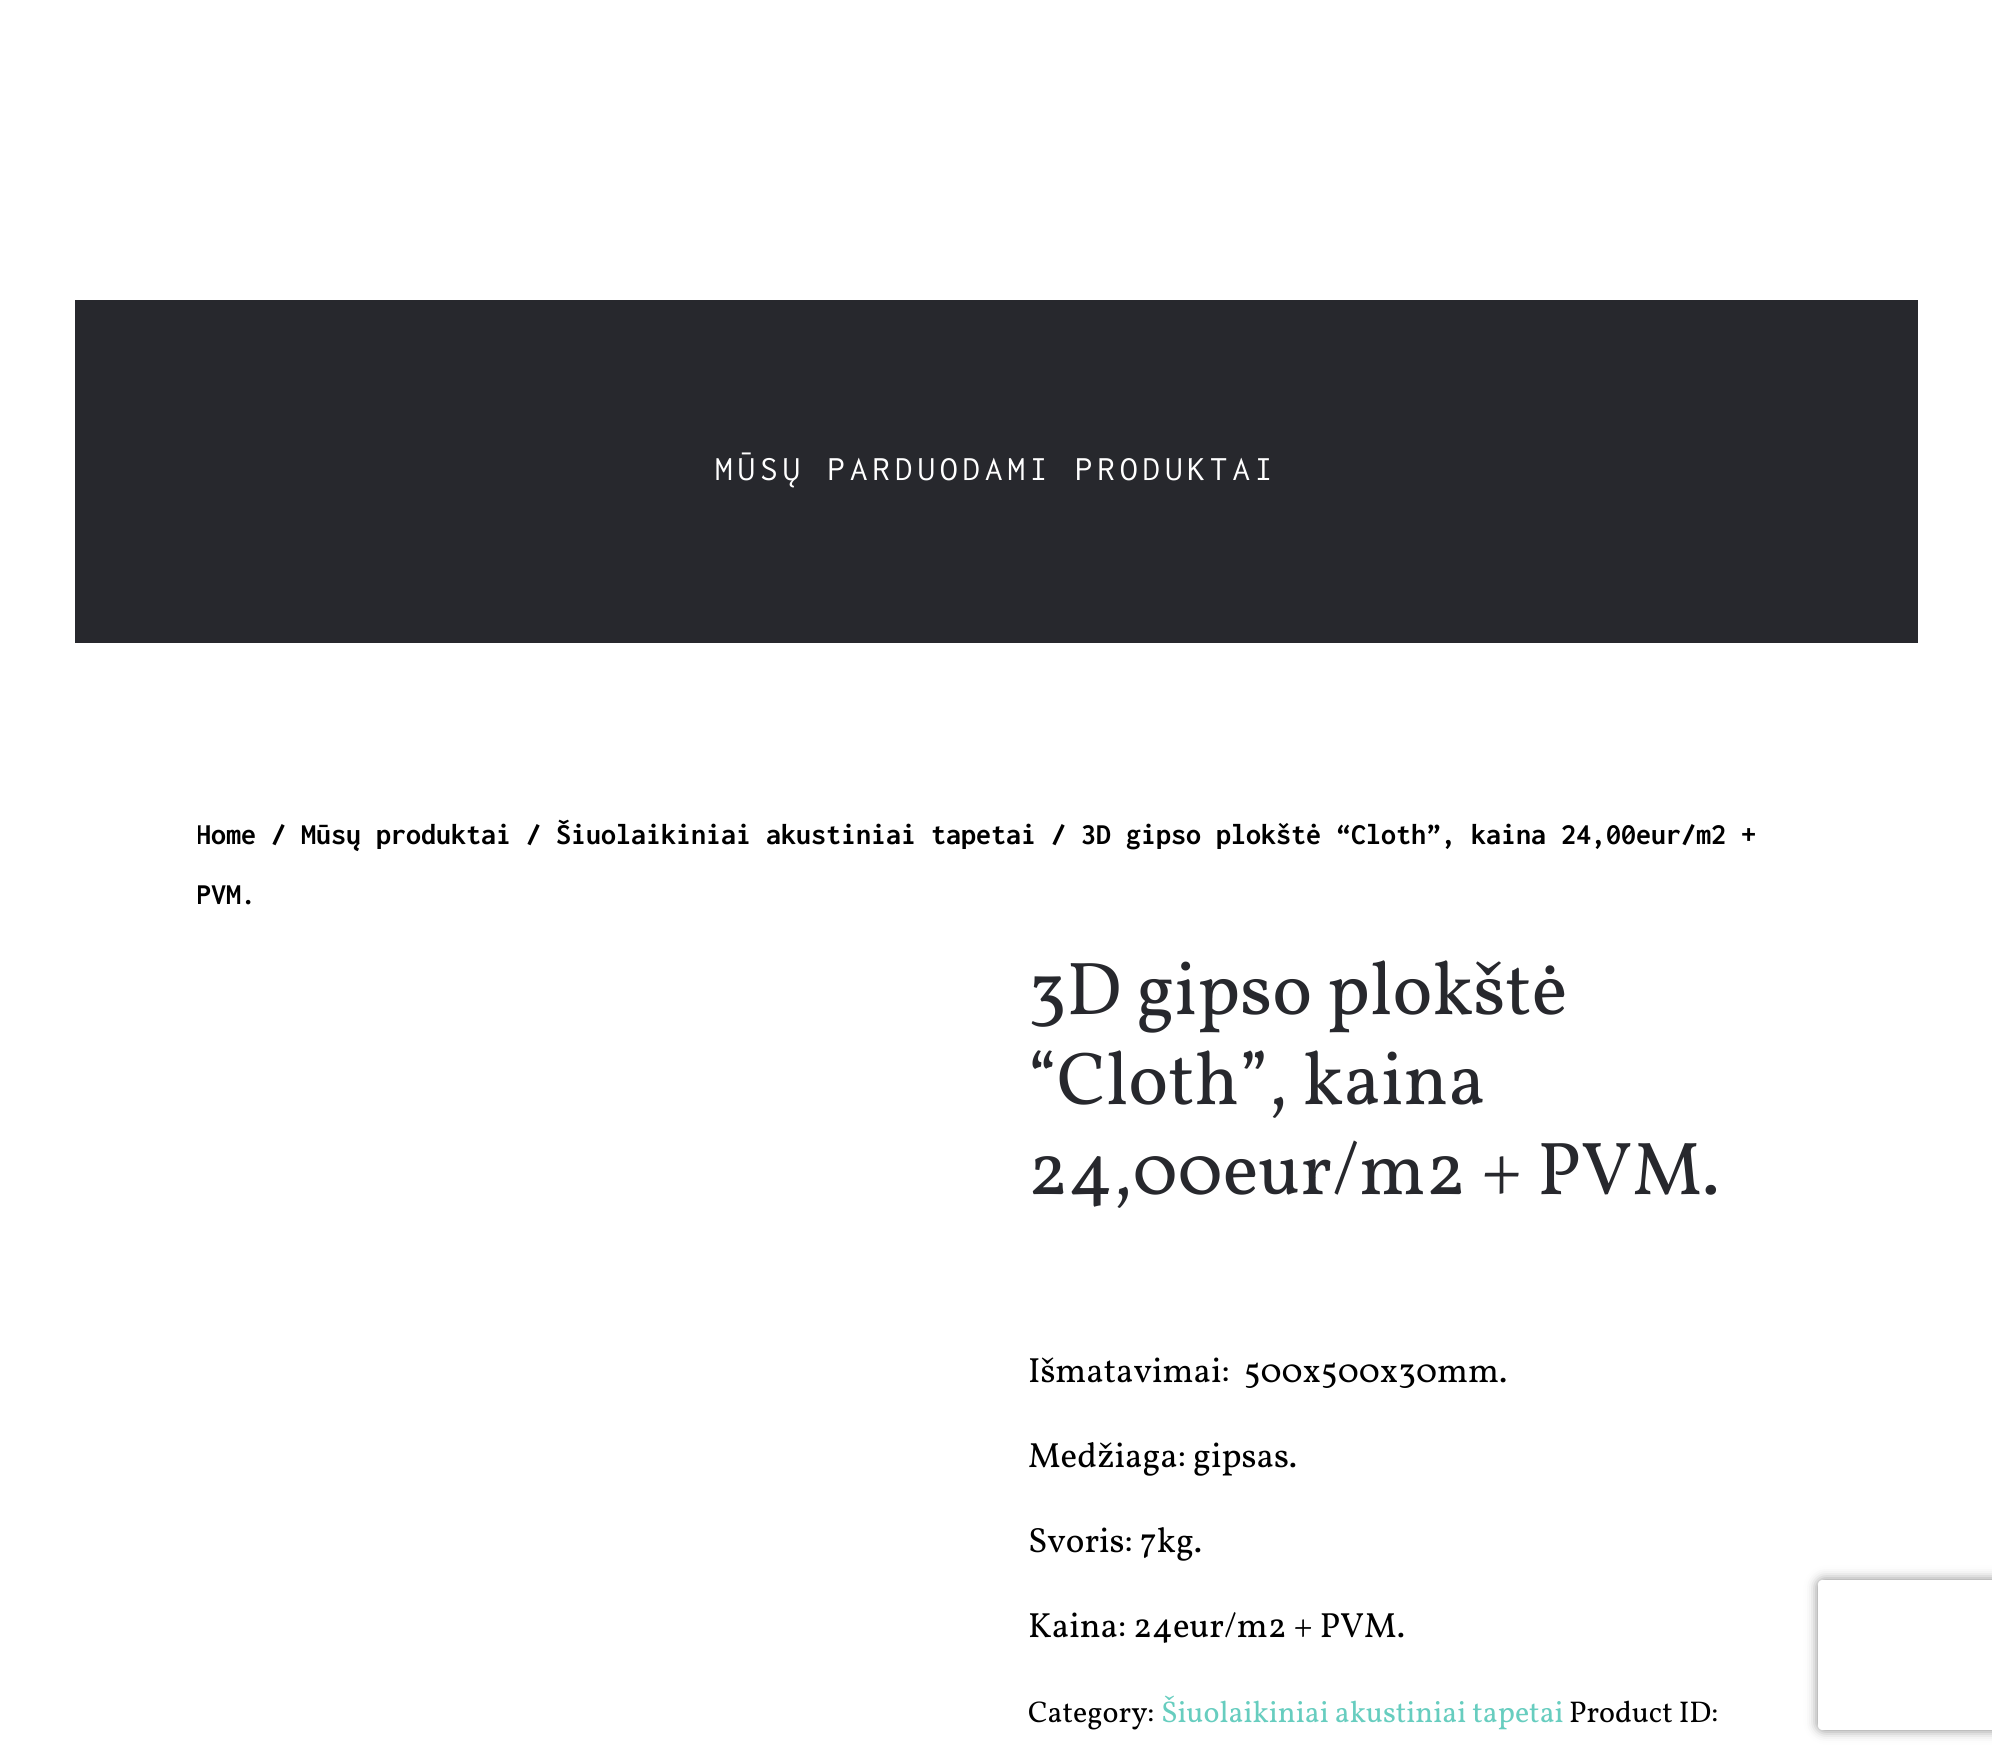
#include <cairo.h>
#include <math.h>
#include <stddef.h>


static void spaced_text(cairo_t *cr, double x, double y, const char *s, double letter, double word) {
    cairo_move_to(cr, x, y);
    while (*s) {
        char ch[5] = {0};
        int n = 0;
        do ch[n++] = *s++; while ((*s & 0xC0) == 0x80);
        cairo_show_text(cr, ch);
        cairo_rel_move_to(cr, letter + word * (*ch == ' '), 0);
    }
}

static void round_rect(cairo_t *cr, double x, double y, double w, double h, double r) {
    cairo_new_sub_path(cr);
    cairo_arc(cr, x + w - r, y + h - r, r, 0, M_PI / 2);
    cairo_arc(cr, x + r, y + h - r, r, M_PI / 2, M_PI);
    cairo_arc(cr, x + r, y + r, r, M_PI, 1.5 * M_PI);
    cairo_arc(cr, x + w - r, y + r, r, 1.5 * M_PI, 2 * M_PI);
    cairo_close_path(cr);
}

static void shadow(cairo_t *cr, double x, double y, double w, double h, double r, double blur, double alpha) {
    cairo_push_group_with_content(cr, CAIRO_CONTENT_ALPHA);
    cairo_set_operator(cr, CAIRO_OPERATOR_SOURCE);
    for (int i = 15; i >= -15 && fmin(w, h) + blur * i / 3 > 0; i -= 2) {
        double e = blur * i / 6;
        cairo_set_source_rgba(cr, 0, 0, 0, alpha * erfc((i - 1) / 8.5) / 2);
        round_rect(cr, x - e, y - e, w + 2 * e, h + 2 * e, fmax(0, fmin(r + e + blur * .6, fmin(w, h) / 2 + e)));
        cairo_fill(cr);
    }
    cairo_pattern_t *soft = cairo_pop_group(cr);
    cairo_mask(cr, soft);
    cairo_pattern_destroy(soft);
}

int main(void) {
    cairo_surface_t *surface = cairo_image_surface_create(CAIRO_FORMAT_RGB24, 1992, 1764);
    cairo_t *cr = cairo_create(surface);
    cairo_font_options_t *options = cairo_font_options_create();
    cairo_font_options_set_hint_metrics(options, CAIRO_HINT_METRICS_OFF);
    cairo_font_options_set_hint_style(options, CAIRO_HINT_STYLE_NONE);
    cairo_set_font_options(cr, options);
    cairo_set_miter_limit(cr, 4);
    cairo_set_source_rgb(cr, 1, 1, 1);
    cairo_paint(cr);
    cairo_set_source_rgb(cr, 0.153, 0.157, 0.176);
    cairo_rectangle(cr, 75, 300, 1843, 343);
    cairo_fill(cr);
    cairo_select_font_face(cr, "Inconsolata", CAIRO_FONT_SLANT_NORMAL, CAIRO_FONT_WEIGHT_NORMAL);
    cairo_set_font_size(cr, 35);
    cairo_set_source_rgb(cr, 1, 1, 1);
    spaced_text(cr, 715, 480, "MŪSŲ PARDUODAMI PRODUKTAI", 5, 0);
    cairo_save(cr);
    cairo_rectangle(cr, 198, 805, 1600, 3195);
    cairo_clip(cr);
    cairo_select_font_face(cr, "Inconsolata", CAIRO_FONT_SLANT_NORMAL, CAIRO_FONT_WEIGHT_BOLD);
    cairo_set_font_size(cr, 30);
    cairo_set_source_rgb(cr, 0, 0, 0);
    cairo_move_to(cr, 196, 844);
    cairo_show_text(cr, "Home");
    cairo_restore(cr);
    cairo_select_font_face(cr, "Inconsolata", CAIRO_FONT_SLANT_NORMAL, CAIRO_FONT_WEIGHT_BOLD);
    cairo_set_font_size(cr, 30);
    cairo_set_source_rgb(cr, 0, 0, 0);
    cairo_move_to(cr, 271, 844);
    cairo_show_text(cr, "/ Mūsų produktai / Šiuolaikiniai akustiniai tapetai / 3D gipso plokštė “Cloth”, kaina 24,00eur/m2 +");
    cairo_save(cr);
    cairo_rectangle(cr, 198, 805, 1600, 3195);
    cairo_clip(cr);
    cairo_move_to(cr, 196, 904);
    cairo_show_text(cr, "PVM.");
    cairo_restore(cr);
    cairo_select_font_face(cr, "Vollkorn", CAIRO_FONT_SLANT_NORMAL, CAIRO_FONT_WEIGHT_NORMAL);
    cairo_set_font_size(cr, 75);
    cairo_set_source_rgb(cr, 0.153, 0.157, 0.176);
    cairo_move_to(cr, 1028, 1014);
    cairo_show_text(cr, "3D gipso plokštė");
    cairo_move_to(cr, 1028, 1104);
    cairo_show_text(cr, "“Cloth”, kaina");
    cairo_move_to(cr, 1028, 1194);
    cairo_show_text(cr, "24,00eur/m2 + PVM.");
    cairo_set_font_size(cr, 35);
    cairo_set_source_rgb(cr, 0, 0, 0);
    cairo_move_to(cr, 1028, 1382);
    cairo_show_text(cr, "Išmatavimai:  500x500x30mm.");
    cairo_move_to(cr, 1028, 1467);
    cairo_show_text(cr, "Medžiaga: gipsas.");
    cairo_move_to(cr, 1028, 1552);
    cairo_show_text(cr, "Svoris: 7kg.");
    cairo_move_to(cr, 1028, 1637);
    cairo_show_text(cr, "Kaina: 24eur/m2 + PVM.");
    cairo_set_font_size(cr, 30);
    cairo_move_to(cr, 1028, 1722);
    cairo_show_text(cr, "Category:");
    cairo_set_source_rgb(cr, 0.404, 0.804, 0.749);
    cairo_move_to(cr, 1161, 1722);
    cairo_show_text(cr, "Šiuolaikiniai akustiniai tapetai");
    cairo_set_source_rgb(cr, 0, 0, 0);
    cairo_move_to(cr, 1569, 1722);
    cairo_show_text(cr, "Product ID:");
    cairo_save(cr);
    cairo_set_fill_rule(cr, CAIRO_FILL_RULE_EVEN_ODD);
    cairo_new_path(cr);
    cairo_move_to(cr, 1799, 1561);
    cairo_line_to(cr, 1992, 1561);
    cairo_line_to(cr, 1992, 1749);
    cairo_line_to(cr, 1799, 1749);
    cairo_close_path(cr);
    cairo_move_to(cr, 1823, 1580);
    cairo_line_to(cr, 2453, 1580);
    cairo_curve_to(cr, 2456, 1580, 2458, 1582, 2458, 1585);
    cairo_line_to(cr, 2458, 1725);
    cairo_curve_to(cr, 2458, 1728, 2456, 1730, 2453, 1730);
    cairo_line_to(cr, 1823, 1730);
    cairo_curve_to(cr, 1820, 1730, 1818, 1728, 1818, 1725);
    cairo_line_to(cr, 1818, 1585);
    cairo_curve_to(cr, 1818, 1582, 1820, 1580, 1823, 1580);
    cairo_close_path(cr);
    cairo_clip(cr);
    cairo_set_source_rgb(cr, 0.502, 0.502, 0.502);
    shadow(cr, 1818, 1580, 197, 150, 5, 6, 1);
    cairo_restore(cr);
    cairo_surface_write_to_png(surface, "page.png");
    cairo_font_options_destroy(options);
    cairo_destroy(cr);
    cairo_surface_destroy(surface);
    return 0;
}
